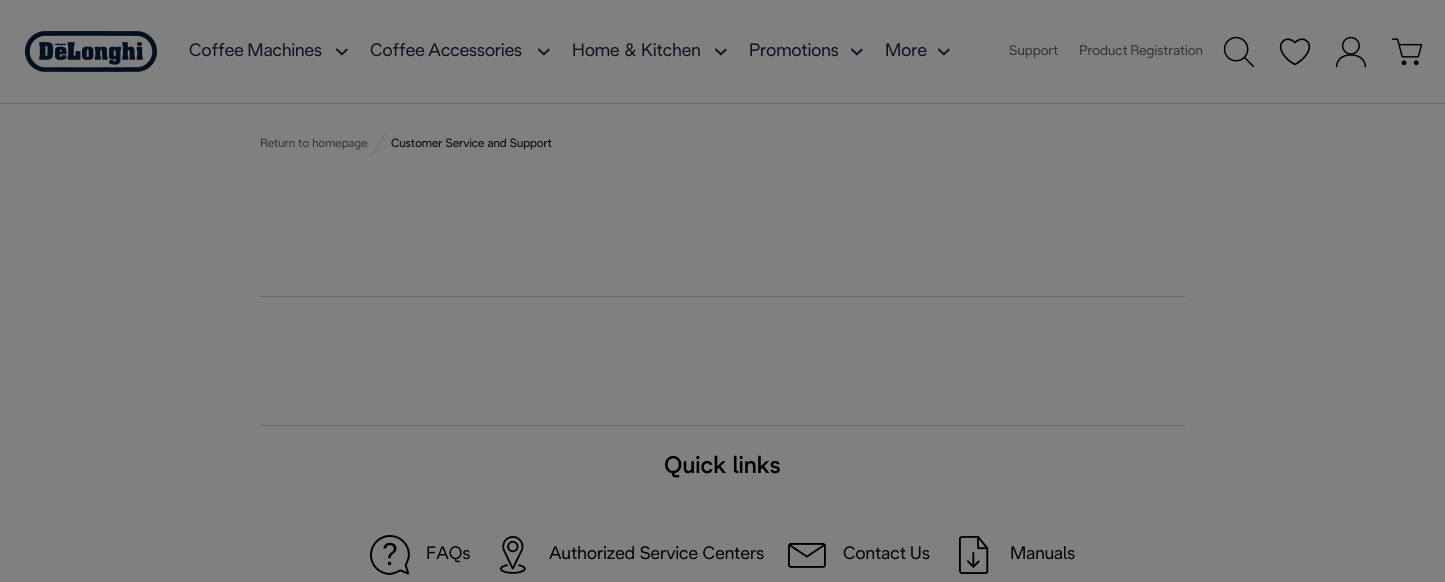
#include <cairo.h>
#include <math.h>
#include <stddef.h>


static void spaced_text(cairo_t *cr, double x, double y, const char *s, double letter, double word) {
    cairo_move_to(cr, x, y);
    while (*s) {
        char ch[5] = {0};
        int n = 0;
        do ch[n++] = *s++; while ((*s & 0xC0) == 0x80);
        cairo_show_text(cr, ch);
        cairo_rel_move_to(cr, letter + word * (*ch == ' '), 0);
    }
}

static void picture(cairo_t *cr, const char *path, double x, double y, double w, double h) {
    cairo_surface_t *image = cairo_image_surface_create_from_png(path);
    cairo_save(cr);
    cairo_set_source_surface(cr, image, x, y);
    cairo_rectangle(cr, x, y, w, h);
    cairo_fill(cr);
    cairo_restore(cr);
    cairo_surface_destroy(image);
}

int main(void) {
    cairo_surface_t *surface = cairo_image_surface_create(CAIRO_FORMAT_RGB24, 1445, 582);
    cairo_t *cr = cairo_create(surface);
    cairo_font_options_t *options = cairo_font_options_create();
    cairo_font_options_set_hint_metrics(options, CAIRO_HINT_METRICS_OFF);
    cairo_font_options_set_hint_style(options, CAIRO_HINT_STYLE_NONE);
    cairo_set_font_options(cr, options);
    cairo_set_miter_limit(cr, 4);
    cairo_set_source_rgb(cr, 0.502, 0.502, 0.502);
    cairo_paint(cr);
    cairo_set_source_rgb(cr, 0.416, 0.416, 0.416);
    cairo_rectangle(cr, 0, 103, 1445, 1);
    cairo_fill(cr);
    picture(cr, "img1.png", 25, 31, 132, 41);
    cairo_select_font_face(cr, "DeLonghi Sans", CAIRO_FONT_SLANT_NORMAL, CAIRO_FONT_WEIGHT_NORMAL);
    cairo_set_font_size(cr, 18);
    cairo_set_source_rgb(cr, 0.024, 0.071, 0.125);
    spaced_text(cr, 189, 56, "Coffee Machines", 0, -1);
    picture(cr, "img2.png", 335, 48, 13, 8);
    spaced_text(cr, 370, 56, "Coffee Accessories", 0, -1);
    picture(cr, "img2.png", 537, 48, 13, 8);
    cairo_move_to(cr, 572, 56);
    cairo_show_text(cr, "Home & Kitchen");
    picture(cr, "img2.png", 714, 48, 13, 8);
    cairo_move_to(cr, 749, 56);
    cairo_show_text(cr, "Promotions");
    picture(cr, "img2.png", 850, 48, 13, 8);
    cairo_move_to(cr, 885, 56);
    cairo_show_text(cr, "More");
    picture(cr, "img2.png", 937, 48, 13, 8);
    cairo_set_font_size(cr, 14);
    cairo_set_source_rgb(cr, 0.196, 0.196, 0.196);
    cairo_move_to(cr, 1009, 55);
    cairo_show_text(cr, "Support");
    spaced_text(cr, 1079, 55, "Product Registration", 0, -1);
    picture(cr, "img3.png", 1223, 36, 32, 32);
    picture(cr, "img4.png", 1279, 38, 32, 28);
    picture(cr, "img5.png", 1335, 36, 32, 32);
    picture(cr, "img6.png", 1391, 38, 32, 28);
    cairo_set_font_size(cr, 12);
    cairo_move_to(cr, 260, 147);
    cairo_show_text(cr, "Return to homepage");
    cairo_new_path(cr);
    cairo_move_to(cr, 386, 132.5);
    cairo_line_to(cr, 372, 155.5);
    cairo_set_source_rgb(cr, 0.416, 0.416, 0.416);
    cairo_set_line_width(cr, 1);
    cairo_stroke(cr);
    cairo_set_source_rgb(cr, 0, 0, 0);
    cairo_move_to(cr, 391, 147);
    cairo_show_text(cr, "Customer Service and Support");
    cairo_set_source_rgb(cr, 0.416, 0.416, 0.416);
    cairo_rectangle(cr, 260, 296, 925, 1);
    cairo_fill(cr);
    cairo_rectangle(cr, 260, 425, 925, 1);
    cairo_fill(cr);
    cairo_select_font_face(cr, "DeLonghi Sans Medium", CAIRO_FONT_SLANT_NORMAL, CAIRO_FONT_WEIGHT_NORMAL);
    cairo_set_font_size(cr, 24);
    cairo_set_source_rgb(cr, 0, 0, 0);
    cairo_move_to(cr, 664, 473);
    cairo_show_text(cr, "Quick links");
    picture(cr, "img7.png", 370, 535, 40, 40);
    cairo_select_font_face(cr, "DeLonghi Sans", CAIRO_FONT_SLANT_NORMAL, CAIRO_FONT_WEIGHT_NORMAL);
    cairo_set_font_size(cr, 18);
    cairo_move_to(cr, 426, 559);
    cairo_show_text(cr, "FAQs");
    picture(cr, "img8.png", 500, 536, 26, 38);
    cairo_move_to(cr, 549, 559);
    cairo_show_text(cr, "Authorized Service Centers");
    picture(cr, "img9.png", 788, 543, 38, 25);
    spaced_text(cr, 843, 559, "Contact Us", 0, -1);
    picture(cr, "img10.png", 959, 536, 30, 38);
    cairo_move_to(cr, 1010, 559);
    cairo_show_text(cr, "Manuals");
    cairo_surface_write_to_png(surface, "page.png");
    cairo_font_options_destroy(options);
    cairo_destroy(cr);
    cairo_surface_destroy(surface);
    return 0;
}
